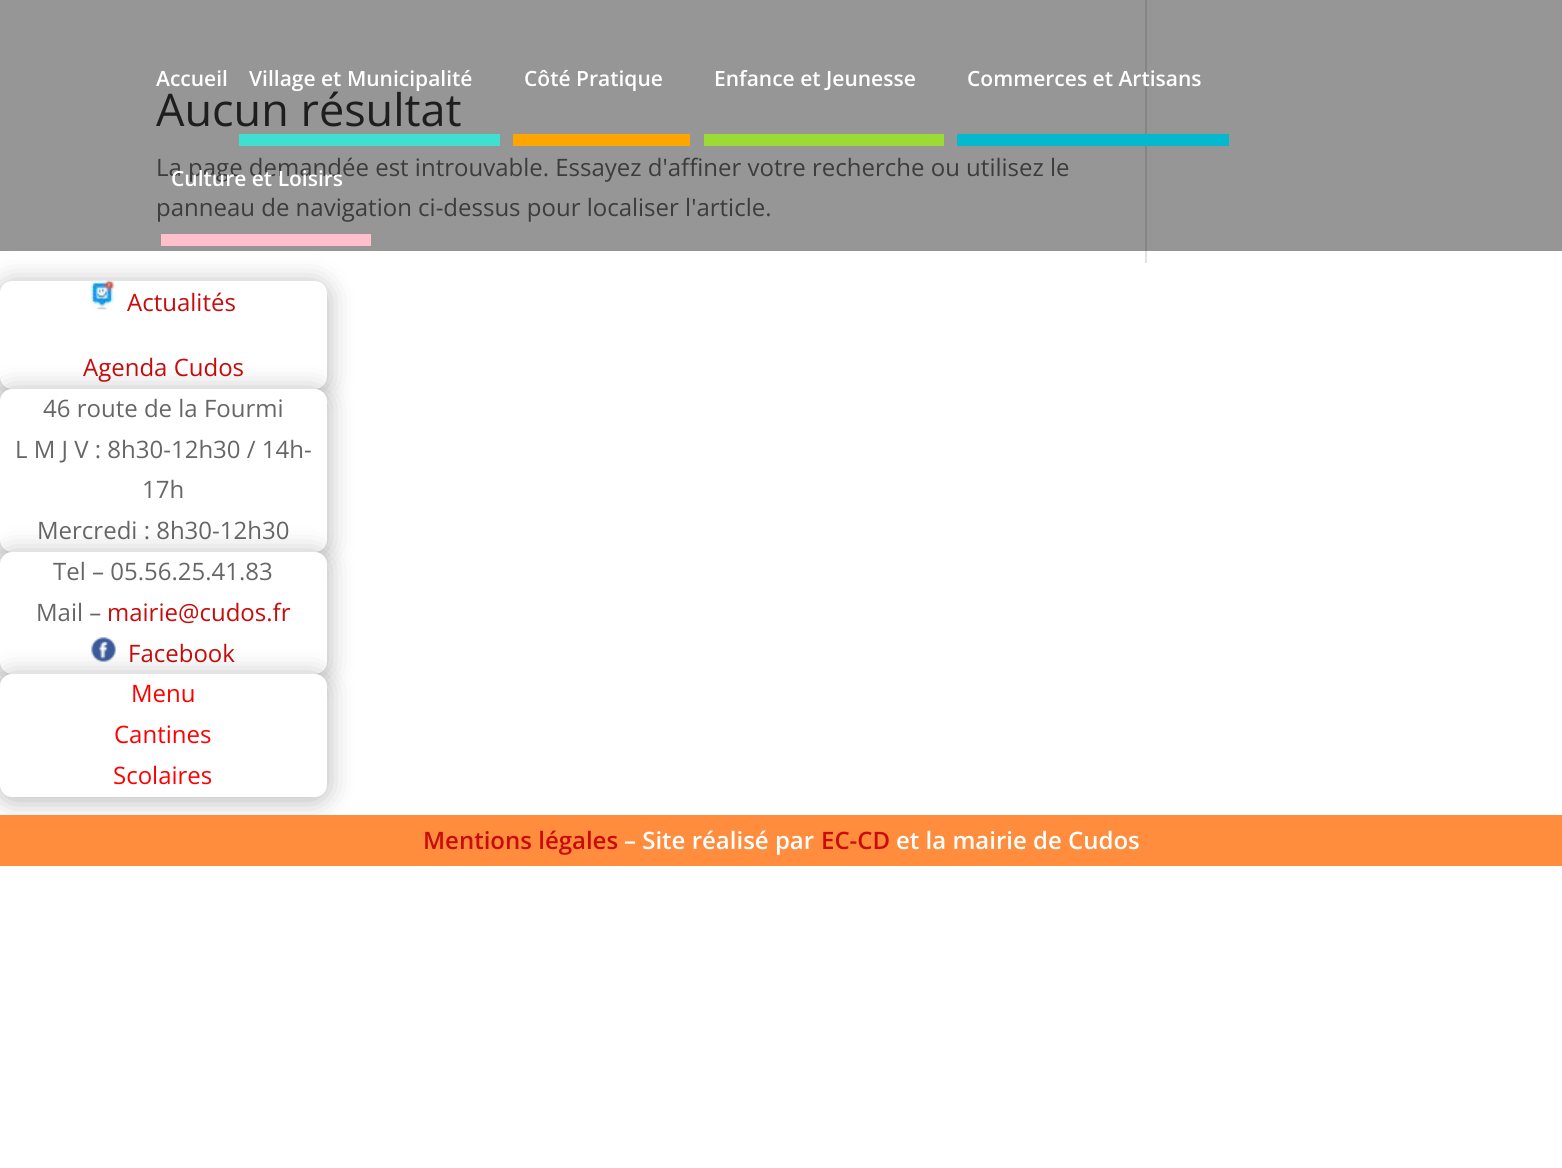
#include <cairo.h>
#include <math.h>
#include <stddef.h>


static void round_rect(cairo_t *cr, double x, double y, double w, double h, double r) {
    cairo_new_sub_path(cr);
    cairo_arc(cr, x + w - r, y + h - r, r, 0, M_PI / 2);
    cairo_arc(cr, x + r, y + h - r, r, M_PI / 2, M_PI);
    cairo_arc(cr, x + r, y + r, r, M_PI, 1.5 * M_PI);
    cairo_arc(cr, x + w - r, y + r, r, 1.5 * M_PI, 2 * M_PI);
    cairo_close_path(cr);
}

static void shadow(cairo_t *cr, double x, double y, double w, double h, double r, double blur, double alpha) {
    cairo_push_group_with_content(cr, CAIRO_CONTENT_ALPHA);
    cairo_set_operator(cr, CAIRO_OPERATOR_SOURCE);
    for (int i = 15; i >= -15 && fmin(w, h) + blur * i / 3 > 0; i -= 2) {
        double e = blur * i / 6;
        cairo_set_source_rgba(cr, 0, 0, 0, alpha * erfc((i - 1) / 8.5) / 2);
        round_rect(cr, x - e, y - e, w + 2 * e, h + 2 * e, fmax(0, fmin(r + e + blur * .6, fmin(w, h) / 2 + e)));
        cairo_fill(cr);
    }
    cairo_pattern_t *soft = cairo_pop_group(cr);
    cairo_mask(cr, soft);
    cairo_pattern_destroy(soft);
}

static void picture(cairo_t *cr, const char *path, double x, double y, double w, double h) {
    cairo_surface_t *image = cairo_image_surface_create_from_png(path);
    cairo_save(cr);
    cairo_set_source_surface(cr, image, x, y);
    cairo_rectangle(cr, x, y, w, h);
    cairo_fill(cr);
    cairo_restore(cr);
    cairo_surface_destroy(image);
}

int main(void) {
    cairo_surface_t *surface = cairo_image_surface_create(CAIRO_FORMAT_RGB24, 1562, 1168);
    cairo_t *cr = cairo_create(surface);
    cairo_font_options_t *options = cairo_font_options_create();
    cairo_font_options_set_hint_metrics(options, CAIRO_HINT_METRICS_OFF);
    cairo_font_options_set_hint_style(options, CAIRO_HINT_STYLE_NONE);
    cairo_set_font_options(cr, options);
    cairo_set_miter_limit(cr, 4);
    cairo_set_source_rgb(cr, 1, 1, 1);
    cairo_paint(cr);
    cairo_set_source_rgb(cr, 0.588, 0.588, 0.588);
    cairo_rectangle(cr, 0, 0, 1562, 251);
    cairo_fill(cr);
    cairo_select_font_face(cr, "Open Sans SemiBold", CAIRO_FONT_SLANT_NORMAL, CAIRO_FONT_WEIGHT_NORMAL);
    cairo_set_font_size(cr, 21);
    cairo_set_source_rgb(cr, 1, 1, 1);
    cairo_move_to(cr, 156, 86);
    cairo_show_text(cr, "Accueil");
    cairo_set_source_rgb(cr, 0.251, 0.878, 0.816);
    cairo_rectangle(cr, 239, 134, 261, 12);
    cairo_fill(cr);
    cairo_set_source_rgb(cr, 1, 1, 1);
    cairo_move_to(cr, 249, 86);
    cairo_show_text(cr, "Village et Municipalité");
    cairo_set_source_rgb(cr, 1, 0.647, 0);
    cairo_rectangle(cr, 513, 134, 177, 12);
    cairo_fill(cr);
    cairo_set_source_rgb(cr, 1, 1, 1);
    cairo_move_to(cr, 524, 86);
    cairo_show_text(cr, "Côté Pratique");
    cairo_set_source_rgb(cr, 0.612, 0.859, 0.208);
    cairo_rectangle(cr, 704, 134, 240, 12);
    cairo_fill(cr);
    cairo_set_source_rgb(cr, 1, 1, 1);
    cairo_move_to(cr, 714, 86);
    cairo_show_text(cr, "Enfance et Jeunesse");
    cairo_set_source_rgb(cr, 0.522, 0.522, 0.522);
    cairo_rectangle(cr, 1145, 0, 2, 251);
    cairo_fill(cr);
    cairo_set_source_rgb(cr, 0.016, 0.725, 0.808);
    cairo_rectangle(cr, 957, 134, 272, 12);
    cairo_fill(cr);
    cairo_set_source_rgb(cr, 1, 1, 1);
    cairo_move_to(cr, 967, 86);
    cairo_show_text(cr, "Commerces et Artisans");
    cairo_set_source_rgb(cr, 0, 0, 0);
    shadow(cr, 0, 284, 327, 108, 12, 13.5, 0.3);
    cairo_set_source_rgb(cr, 1, 0.753, 0.796);
    cairo_rectangle(cr, 161, 234, 210, 12);
    cairo_fill(cr);
    cairo_select_font_face(cr, "Open Sans", CAIRO_FONT_SLANT_NORMAL, CAIRO_FONT_WEIGHT_NORMAL);
    cairo_set_font_size(cr, 24);
    cairo_set_source_rgb(cr, 0.235, 0.235, 0.235);
    cairo_move_to(cr, 156, 176);
    cairo_show_text(cr, "La page demandée est introuvable. Essayez d'affiner votre recherche ou utilisez le");
    cairo_select_font_face(cr, "Open Sans SemiBold", CAIRO_FONT_SLANT_NORMAL, CAIRO_FONT_WEIGHT_NORMAL);
    cairo_set_font_size(cr, 21);
    cairo_set_source_rgb(cr, 1, 1, 1);
    cairo_move_to(cr, 171, 186);
    cairo_show_text(cr, "Culture et Loisirs");
    cairo_select_font_face(cr, "Open Sans", CAIRO_FONT_SLANT_NORMAL, CAIRO_FONT_WEIGHT_NORMAL);
    cairo_set_font_size(cr, 45);
    cairo_set_source_rgb(cr, 0.118, 0.118, 0.118);
    cairo_move_to(cr, 156, 126);
    cairo_show_text(cr, "Aucun résultat");
    cairo_set_font_size(cr, 24);
    cairo_set_source_rgb(cr, 0.235, 0.235, 0.235);
    cairo_move_to(cr, 156, 216);
    cairo_show_text(cr, "panneau de navigation ci-dessus pour localiser l'article.");
    cairo_set_source_rgb(cr, 0.886, 0.886, 0.886);
    cairo_rectangle(cr, 1145, 251, 2, 12);
    cairo_fill(cr);
    cairo_set_source_rgb(cr, 1, 1, 1);
    round_rect(cr, 0, 281, 327, 108, 12);
    cairo_fill(cr);
    picture(cr, "img1.png", 90, 280, 24, 30);
    cairo_set_source_rgb(cr, 0.788, 0.043, 0.043);
    cairo_move_to(cr, 127, 311);
    cairo_show_text(cr, "Actualités");
    cairo_move_to(cr, 83, 376);
    cairo_show_text(cr, "Agenda Cudos");
    cairo_set_source_rgb(cr, 0, 0, 0);
    shadow(cr, 0, 392, 327, 163, 12, 13.5, 0.3);
    cairo_set_source_rgb(cr, 1, 1, 1);
    round_rect(cr, 0, 389, 327, 163, 12);
    cairo_fill(cr);
    cairo_set_source_rgb(cr, 0.4, 0.4, 0.4);
    cairo_move_to(cr, 43, 417);
    cairo_show_text(cr, "46 route de la Fourmi");
    cairo_move_to(cr, 15, 458);
    cairo_show_text(cr, "L M J V : 8h30-12h30 / 14h-");
    cairo_move_to(cr, 142, 498);
    cairo_show_text(cr, "17h");
    cairo_move_to(cr, 37, 539);
    cairo_show_text(cr, "Mercredi : 8h30-12h30");
    cairo_set_source_rgb(cr, 0, 0, 0);
    shadow(cr, 0, 555, 327, 122, 12, 13.5, 0.3);
    cairo_set_source_rgb(cr, 1, 1, 1);
    round_rect(cr, 0, 552, 327, 122, 12);
    cairo_fill(cr);
    cairo_set_source_rgb(cr, 0.4, 0.4, 0.4);
    cairo_move_to(cr, 53, 580);
    cairo_show_text(cr, "Tel – 05.56.25.41.83");
    cairo_move_to(cr, 36, 621);
    cairo_show_text(cr, "Mail –");
    cairo_set_source_rgb(cr, 0.788, 0.043, 0.043);
    cairo_move_to(cr, 107, 621);
    cairo_show_text(cr, "mairie@cudos.fr");
    picture(cr, "img2.png", 91, 637, 25, 25);
    cairo_move_to(cr, 128, 662);
    cairo_show_text(cr, "Facebook");
    cairo_set_source_rgb(cr, 0, 0, 0);
    shadow(cr, 0, 677, 327, 123, 12, 13.5, 0.3);
    cairo_set_source_rgb(cr, 1, 1, 1);
    round_rect(cr, 0, 674, 327, 123, 12);
    cairo_fill(cr);
    cairo_set_source_rgb(cr, 1, 0, 0);
    cairo_move_to(cr, 131, 702);
    cairo_show_text(cr, "Menu");
    cairo_move_to(cr, 114, 743);
    cairo_show_text(cr, "Cantines");
    cairo_move_to(cr, 113, 784);
    cairo_show_text(cr, "Scolaires");
    cairo_set_source_rgb(cr, 1, 0.553, 0.239);
    cairo_rectangle(cr, 0, 815, 1562, 51);
    cairo_fill(cr);
    cairo_select_font_face(cr, "Open Sans SemiBold", CAIRO_FONT_SLANT_NORMAL, CAIRO_FONT_WEIGHT_NORMAL);
    cairo_set_source_rgb(cr, 0.788, 0.043, 0.043);
    cairo_move_to(cr, 423, 849);
    cairo_show_text(cr, "Mentions légales");
    cairo_set_source_rgb(cr, 1, 1, 1);
    cairo_move_to(cr, 624, 849);
    cairo_show_text(cr, "– Site réalisé par");
    cairo_set_source_rgb(cr, 0.788, 0.043, 0.043);
    cairo_move_to(cr, 821, 849);
    cairo_show_text(cr, "EC-CD");
    cairo_set_source_rgb(cr, 1, 1, 1);
    cairo_move_to(cr, 896, 849);
    cairo_show_text(cr, "et la mairie de Cudos");
    cairo_surface_write_to_png(surface, "page.png");
    cairo_font_options_destroy(options);
    cairo_destroy(cr);
    cairo_surface_destroy(surface);
    return 0;
}
